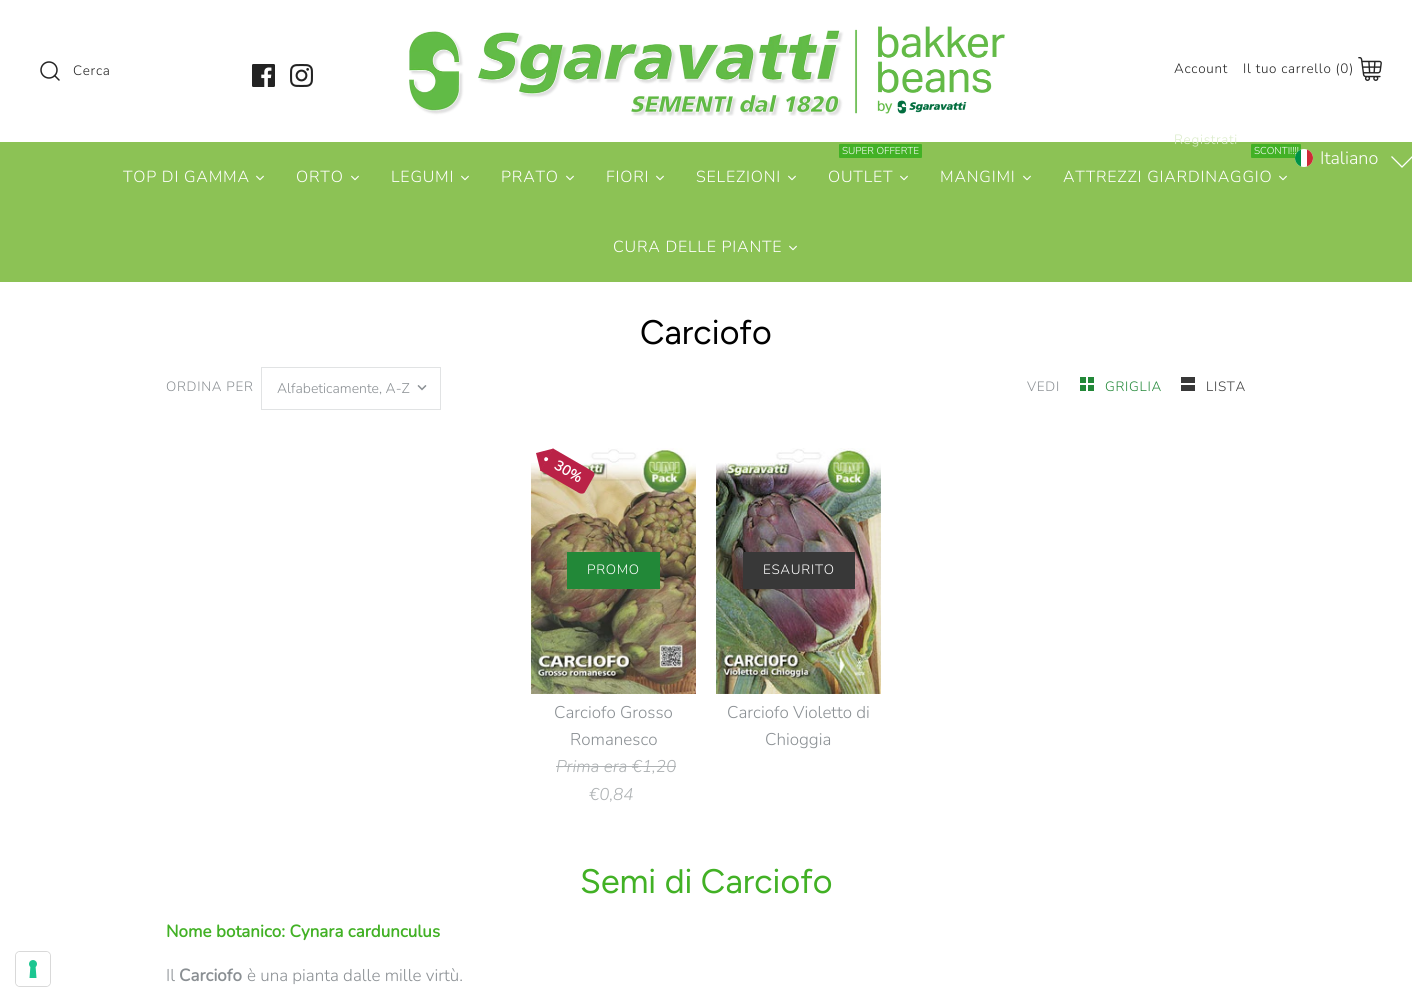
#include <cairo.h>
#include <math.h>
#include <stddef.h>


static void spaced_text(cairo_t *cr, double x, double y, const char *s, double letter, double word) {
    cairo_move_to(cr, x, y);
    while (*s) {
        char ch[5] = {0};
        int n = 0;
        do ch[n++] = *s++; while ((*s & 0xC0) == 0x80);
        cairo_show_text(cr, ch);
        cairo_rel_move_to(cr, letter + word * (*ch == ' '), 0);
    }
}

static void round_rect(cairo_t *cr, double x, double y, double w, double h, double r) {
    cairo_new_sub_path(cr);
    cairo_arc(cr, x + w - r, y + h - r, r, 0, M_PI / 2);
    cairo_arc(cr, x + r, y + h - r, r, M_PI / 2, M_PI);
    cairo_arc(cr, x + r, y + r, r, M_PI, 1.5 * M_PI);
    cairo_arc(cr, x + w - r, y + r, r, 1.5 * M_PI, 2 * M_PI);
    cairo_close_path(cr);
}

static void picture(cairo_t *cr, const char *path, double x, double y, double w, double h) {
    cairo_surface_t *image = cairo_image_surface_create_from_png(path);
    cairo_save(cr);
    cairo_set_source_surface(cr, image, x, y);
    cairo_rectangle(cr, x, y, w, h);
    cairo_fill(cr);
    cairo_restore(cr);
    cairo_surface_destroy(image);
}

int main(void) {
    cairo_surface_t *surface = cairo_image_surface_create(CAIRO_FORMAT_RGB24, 1412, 1002);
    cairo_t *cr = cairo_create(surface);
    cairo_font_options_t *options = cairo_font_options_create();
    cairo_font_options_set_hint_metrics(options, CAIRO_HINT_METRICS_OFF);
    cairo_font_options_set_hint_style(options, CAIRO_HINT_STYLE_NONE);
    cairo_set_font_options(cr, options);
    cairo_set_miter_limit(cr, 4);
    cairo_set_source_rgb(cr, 1, 1, 1);
    cairo_paint(cr);
    picture(cr, "img1.png", 409, 26, 596, 90);
    cairo_arc(cr, 49, 70, 8, 0, 2 * M_PI);
    cairo_set_source_rgb(cr, 0.137, 0.137, 0.137);
    cairo_set_line_width(cr, 1.5);
    cairo_stroke(cr);
    cairo_new_path(cr);
    cairo_move_to(cr, 59, 80);
    cairo_line_to(cr, 54.5, 75.5);
    cairo_set_line_cap(cr, CAIRO_LINE_CAP_ROUND);
    cairo_set_line_join(cr, CAIRO_LINE_JOIN_ROUND);
    cairo_stroke(cr);
    cairo_select_font_face(cr, "Nunito Light", CAIRO_FONT_SLANT_NORMAL, CAIRO_FONT_WEIGHT_NORMAL);
    cairo_set_font_size(cr, 13.5);
    spaced_text(cr, 73, 75, "Cerca", 0.7, 0);
    picture(cr, "img2.png", 252, 64, 23, 23);
    picture(cr, "img3.png", 290, 64, 23, 23);
    spaced_text(cr, 1174, 73, "Account", 0.7, 0);
    cairo_set_source_rgb(cr, 0.549, 0.761, 0.333);
    cairo_rectangle(cr, 0, 142, 1412, 140);
    cairo_fill(cr);
    cairo_set_source_rgb(cr, 0.859, 0.925, 0.792);
    spaced_text(cr, 1174, 144, "Registrati", 0.7, 0);
    cairo_set_source_rgb(cr, 0.137, 0.137, 0.137);
    spaced_text(cr, 1243, 73, "Il tuo carrello (0)", 0.7, 0);
    picture(cr, "img4.png", 1358, 57, 24, 24);
    cairo_set_font_size(cr, 16);
    cairo_set_source_rgb(cr, 1, 1, 1);
    spaced_text(cr, 123, 182, "TOP DI GAMMA", 0.8, 0);
    picture(cr, "img5.png", 256, 175, 8, 6);
    spaced_text(cr, 296, 182, "ORTO", 0.8, 0);
    picture(cr, "img5.png", 351, 175, 8, 6);
    spaced_text(cr, 391, 182, "LEGUMI", 0.8, 0);
    picture(cr, "img5.png", 461, 175, 8, 6);
    spaced_text(cr, 501, 182, "PRATO", 0.8, 0);
    picture(cr, "img5.png", 566, 175, 8, 6);
    spaced_text(cr, 606, 182, "FIORI", 0.8, 0);
    picture(cr, "img5.png", 656, 175, 8, 6);
    spaced_text(cr, 696, 182, "SELEZIONI", 0.8, 0);
    picture(cr, "img5.png", 788, 175, 8, 6);
    cairo_set_source_rgb(cr, 0.259, 0.694, 0.145);
    round_rect(cr, 839, 144, 83, 14, 1);
    cairo_fill(cr);
    cairo_set_font_size(cr, 10);
    cairo_set_source_rgb(cr, 1, 1, 1);
    cairo_move_to(cr, 842, 154);
    cairo_show_text(cr, "SUPER OFFERTE");
    cairo_set_font_size(cr, 16);
    spaced_text(cr, 828, 182, "OUTLET", 0.8, 0);
    picture(cr, "img5.png", 900, 175, 8, 6);
    spaced_text(cr, 940, 182, "MANGIMI", 0.8, 0);
    picture(cr, "img5.png", 1023, 175, 8, 6);
    cairo_set_source_rgb(cr, 0.259, 0.694, 0.145);
    round_rect(cr, 1251, 144, 50, 14, 1);
    cairo_fill(cr);
    cairo_set_font_size(cr, 10);
    cairo_set_source_rgb(cr, 1, 1, 1);
    cairo_move_to(cr, 1254, 154);
    cairo_show_text(cr, "SCONTI!!!!");
    cairo_set_font_size(cr, 16);
    spaced_text(cr, 1063, 182, "ATTREZZI GIARDINAGGIO", 0.8, 0);
    picture(cr, "img5.png", 1279, 175, 8, 6);
    spaced_text(cr, 613, 252, "CURA DELLE PIANTE", 0.8, 0);
    picture(cr, "img5.png", 789, 245, 8, 6);
    cairo_arc(cr, 1304, 158, 9, 0, 2 * M_PI);
    cairo_fill(cr);
    cairo_save(cr);
    round_rect(cr, 1295, 149, 18, 18, 9);
    cairo_clip(cr);
    cairo_set_source_rgb(cr, 0, 0.573, 0.275);
    cairo_rectangle(cr, 1295, 149, 6, 18);
    cairo_fill(cr);
    cairo_set_source_rgb(cr, 0.808, 0.169, 0.216);
    cairo_rectangle(cr, 1307, 149, 6, 18);
    cairo_fill(cr);
    cairo_restore(cr);
    cairo_set_font_size(cr, 18);
    cairo_move_to(cr, 1320, 164);
    cairo_show_text(cr, "Italiano");
    cairo_new_path(cr);
    cairo_move_to(cr, 1391.5, 156.5);
    cairo_line_to(cr, 1402, 167);
    cairo_line_to(cr, 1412.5, 156.5);
    cairo_set_line_width(cr, 1.3);
    cairo_set_line_cap(cr, CAIRO_LINE_CAP_BUTT);
    cairo_set_line_join(cr, CAIRO_LINE_JOIN_MITER);
    cairo_stroke(cr);
    round_rect(cr, 15.5, 951.5, 35, 35, 4.5);
    cairo_set_source_rgb(cr, 0.851, 0.851, 0.851);
    cairo_set_line_width(cr, 1);
    cairo_stroke(cr);
    cairo_set_source_rgb(cr, 1, 1, 1);
    round_rect(cr, 16, 952, 34, 34, 4);
    cairo_fill(cr);
    picture(cr, "img6.png", 29, 960, 8, 18);
    cairo_select_font_face(cr, "Figtree", CAIRO_FONT_SLANT_NORMAL, CAIRO_FONT_WEIGHT_NORMAL);
    cairo_set_font_size(cr, 34);
    cairo_set_source_rgb(cr, 0, 0, 0);
    cairo_move_to(cr, 640, 344);
    cairo_show_text(cr, "Carciofo");
    cairo_select_font_face(cr, "Nunito Light", CAIRO_FONT_SLANT_NORMAL, CAIRO_FONT_WEIGHT_NORMAL);
    cairo_set_font_size(cr, 13.5);
    cairo_set_source_rgb(cr, 0.541, 0.561, 0.576);
    spaced_text(cr, 166, 391, "ORDINA PER", 0.7, 0);
    cairo_rectangle(cr, 261.5, 367.5, 179, 42);
    cairo_set_source_rgb(cr, 0.882, 0.89, 0.894);
    cairo_stroke(cr);
    cairo_set_font_size(cr, 14);
    cairo_set_source_rgb(cr, 0.541, 0.561, 0.576);
    cairo_move_to(cr, 277, 393);
    cairo_show_text(cr, "Alfabeticamente, A-Z");
    picture(cr, "img7.png", 417, 385, 10, 6);
    cairo_set_font_size(cr, 13.5);
    spaced_text(cr, 1027, 391, "VEDI", 0.7, 0);
    cairo_set_source_rgb(cr, 0.133, 0.533, 0.22);
    cairo_rectangle(cr, 1080, 377, 6, 6);
    cairo_fill(cr);
    cairo_rectangle(cr, 1088, 377, 6, 6);
    cairo_fill(cr);
    cairo_rectangle(cr, 1080, 385, 6, 6);
    cairo_fill(cr);
    cairo_rectangle(cr, 1088, 385, 6, 6);
    cairo_fill(cr);
    spaced_text(cr, 1105, 391, "GRIGLIA", 0.7, 0);
    cairo_set_source_rgb(cr, 0.22, 0.22, 0.22);
    cairo_rectangle(cr, 1181, 377, 14, 6);
    cairo_fill(cr);
    cairo_rectangle(cr, 1181, 385, 14, 6);
    cairo_fill(cr);
    spaced_text(cr, 1206, 391, "LISTA", 0.7, 0);
    picture(cr, "img8.png", 531, 448, 165, 246);
    cairo_set_source_rgb(cr, 0.729, 0.133, 0.278);
    cairo_new_path(cr);
    cairo_move_to(cr, 554, 449);
    cairo_line_to(cr, 592, 471);
    cairo_curve_to(cr, 594, 472, 595, 474, 594, 476);
    cairo_line_to(cr, 585, 492);
    cairo_curve_to(cr, 584, 494, 581, 494, 579, 493);
    cairo_line_to(cr, 541, 471);
    cairo_curve_to(cr, 540, 471, 540, 470, 541, 469);
    cairo_line_to(cr, 552, 450);
    cairo_curve_to(cr, 552, 449, 553, 448, 554, 449);
    cairo_close_path(cr);
    cairo_fill(cr);
    cairo_new_path(cr);
    cairo_move_to(cr, 553.5, 448.5);
    cairo_line_to(cr, 540.5, 471);
    cairo_line_to(cr, 536, 453);
    cairo_close_path(cr);
    cairo_fill(cr);
    cairo_set_source_rgb(cr, 1, 1, 1);
    cairo_new_path(cr);
    cairo_move_to(cr, 547, 457.5);
    cairo_curve_to(cr, 549.5, 458.5, 547.5, 462, 545, 461);
    cairo_curve_to(cr, 543, 459.5, 545, 456, 547, 457.5);
    cairo_close_path(cr);
    cairo_fill(cr);
    cairo_select_font_face(cr, "Nunito", CAIRO_FONT_SLANT_NORMAL, CAIRO_FONT_WEIGHT_BOLD);
    cairo_set_font_size(cr, 14);
    cairo_save(cr);
    cairo_translate(cr, 553, 468);
    cairo_rotate(cr, 30 * M_PI / 180);
    cairo_move_to(cr, 0, 0);
    cairo_show_text(cr, "30%");
    cairo_restore(cr);
    cairo_set_source_rgb(cr, 0.133, 0.533, 0.22);
    cairo_rectangle(cr, 567, 552, 93, 37);
    cairo_fill(cr);
    cairo_select_font_face(cr, "Nunito Light", CAIRO_FONT_SLANT_NORMAL, CAIRO_FONT_WEIGHT_NORMAL);
    cairo_set_font_size(cr, 13.5);
    cairo_set_source_rgb(cr, 1, 1, 1);
    spaced_text(cr, 587, 574, "PROMO", 0.7, 0);
    cairo_set_font_size(cr, 17);
    cairo_set_source_rgb(cr, 0.541, 0.561, 0.576);
    cairo_move_to(cr, 554, 718);
    cairo_show_text(cr, "Carciofo Grosso");
    cairo_move_to(cr, 570, 745);
    cairo_show_text(cr, "Romanesco");
    cairo_select_font_face(cr, "Nunito Light", CAIRO_FONT_SLANT_ITALIC, CAIRO_FONT_WEIGHT_NORMAL);
    cairo_set_source_rgb(cr, 0.678, 0.694, 0.702);
    cairo_move_to(cr, 556, 772);
    cairo_show_text(cr, "Prima era €1,20");
    cairo_rectangle(cr, 556, 766, 120, 1);
    cairo_fill(cr);
    cairo_move_to(cr, 589, 800);
    cairo_show_text(cr, "€0,84");
    picture(cr, "img9.png", 716, 448, 165, 246);
    cairo_set_source_rgb(cr, 0.22, 0.22, 0.22);
    cairo_rectangle(cr, 743, 552, 112, 37);
    cairo_fill(cr);
    cairo_select_font_face(cr, "Nunito Light", CAIRO_FONT_SLANT_NORMAL, CAIRO_FONT_WEIGHT_NORMAL);
    cairo_set_font_size(cr, 13.5);
    cairo_set_source_rgb(cr, 1, 1, 1);
    spaced_text(cr, 763, 574, "ESAURITO", 0.7, 0);
    cairo_set_font_size(cr, 17);
    cairo_set_source_rgb(cr, 0.541, 0.561, 0.576);
    cairo_move_to(cr, 727, 718);
    cairo_show_text(cr, "Carciofo Violetto di");
    cairo_move_to(cr, 765, 745);
    cairo_show_text(cr, "Chioggia");
    cairo_select_font_face(cr, "Figtree", CAIRO_FONT_SLANT_NORMAL, CAIRO_FONT_WEIGHT_NORMAL);
    cairo_set_font_size(cr, 34);
    cairo_set_source_rgb(cr, 0.259, 0.694, 0.145);
    cairo_move_to(cr, 580, 893);
    cairo_show_text(cr, "Semi di Carciofo");
    cairo_select_font_face(cr, "Nunito", CAIRO_FONT_SLANT_NORMAL, CAIRO_FONT_WEIGHT_BOLD);
    cairo_set_font_size(cr, 17);
    cairo_move_to(cr, 166, 937);
    cairo_show_text(cr, "Nome botanico: Cynara cardunculus");
    cairo_select_font_face(cr, "Nunito Light", CAIRO_FONT_SLANT_NORMAL, CAIRO_FONT_WEIGHT_NORMAL);
    cairo_set_source_rgb(cr, 0.541, 0.561, 0.576);
    cairo_move_to(cr, 166, 981);
    cairo_show_text(cr, "Il");
    cairo_select_font_face(cr, "Nunito", CAIRO_FONT_SLANT_NORMAL, CAIRO_FONT_WEIGHT_BOLD);
    cairo_move_to(cr, 179, 981);
    cairo_show_text(cr, "Carciofo");
    cairo_select_font_face(cr, "Nunito Light", CAIRO_FONT_SLANT_NORMAL, CAIRO_FONT_WEIGHT_NORMAL);
    cairo_move_to(cr, 247, 981);
    cairo_show_text(cr, "è una pianta dalle mille virtù.");
    cairo_surface_write_to_png(surface, "page.png");
    cairo_font_options_destroy(options);
    cairo_destroy(cr);
    cairo_surface_destroy(surface);
    return 0;
}
